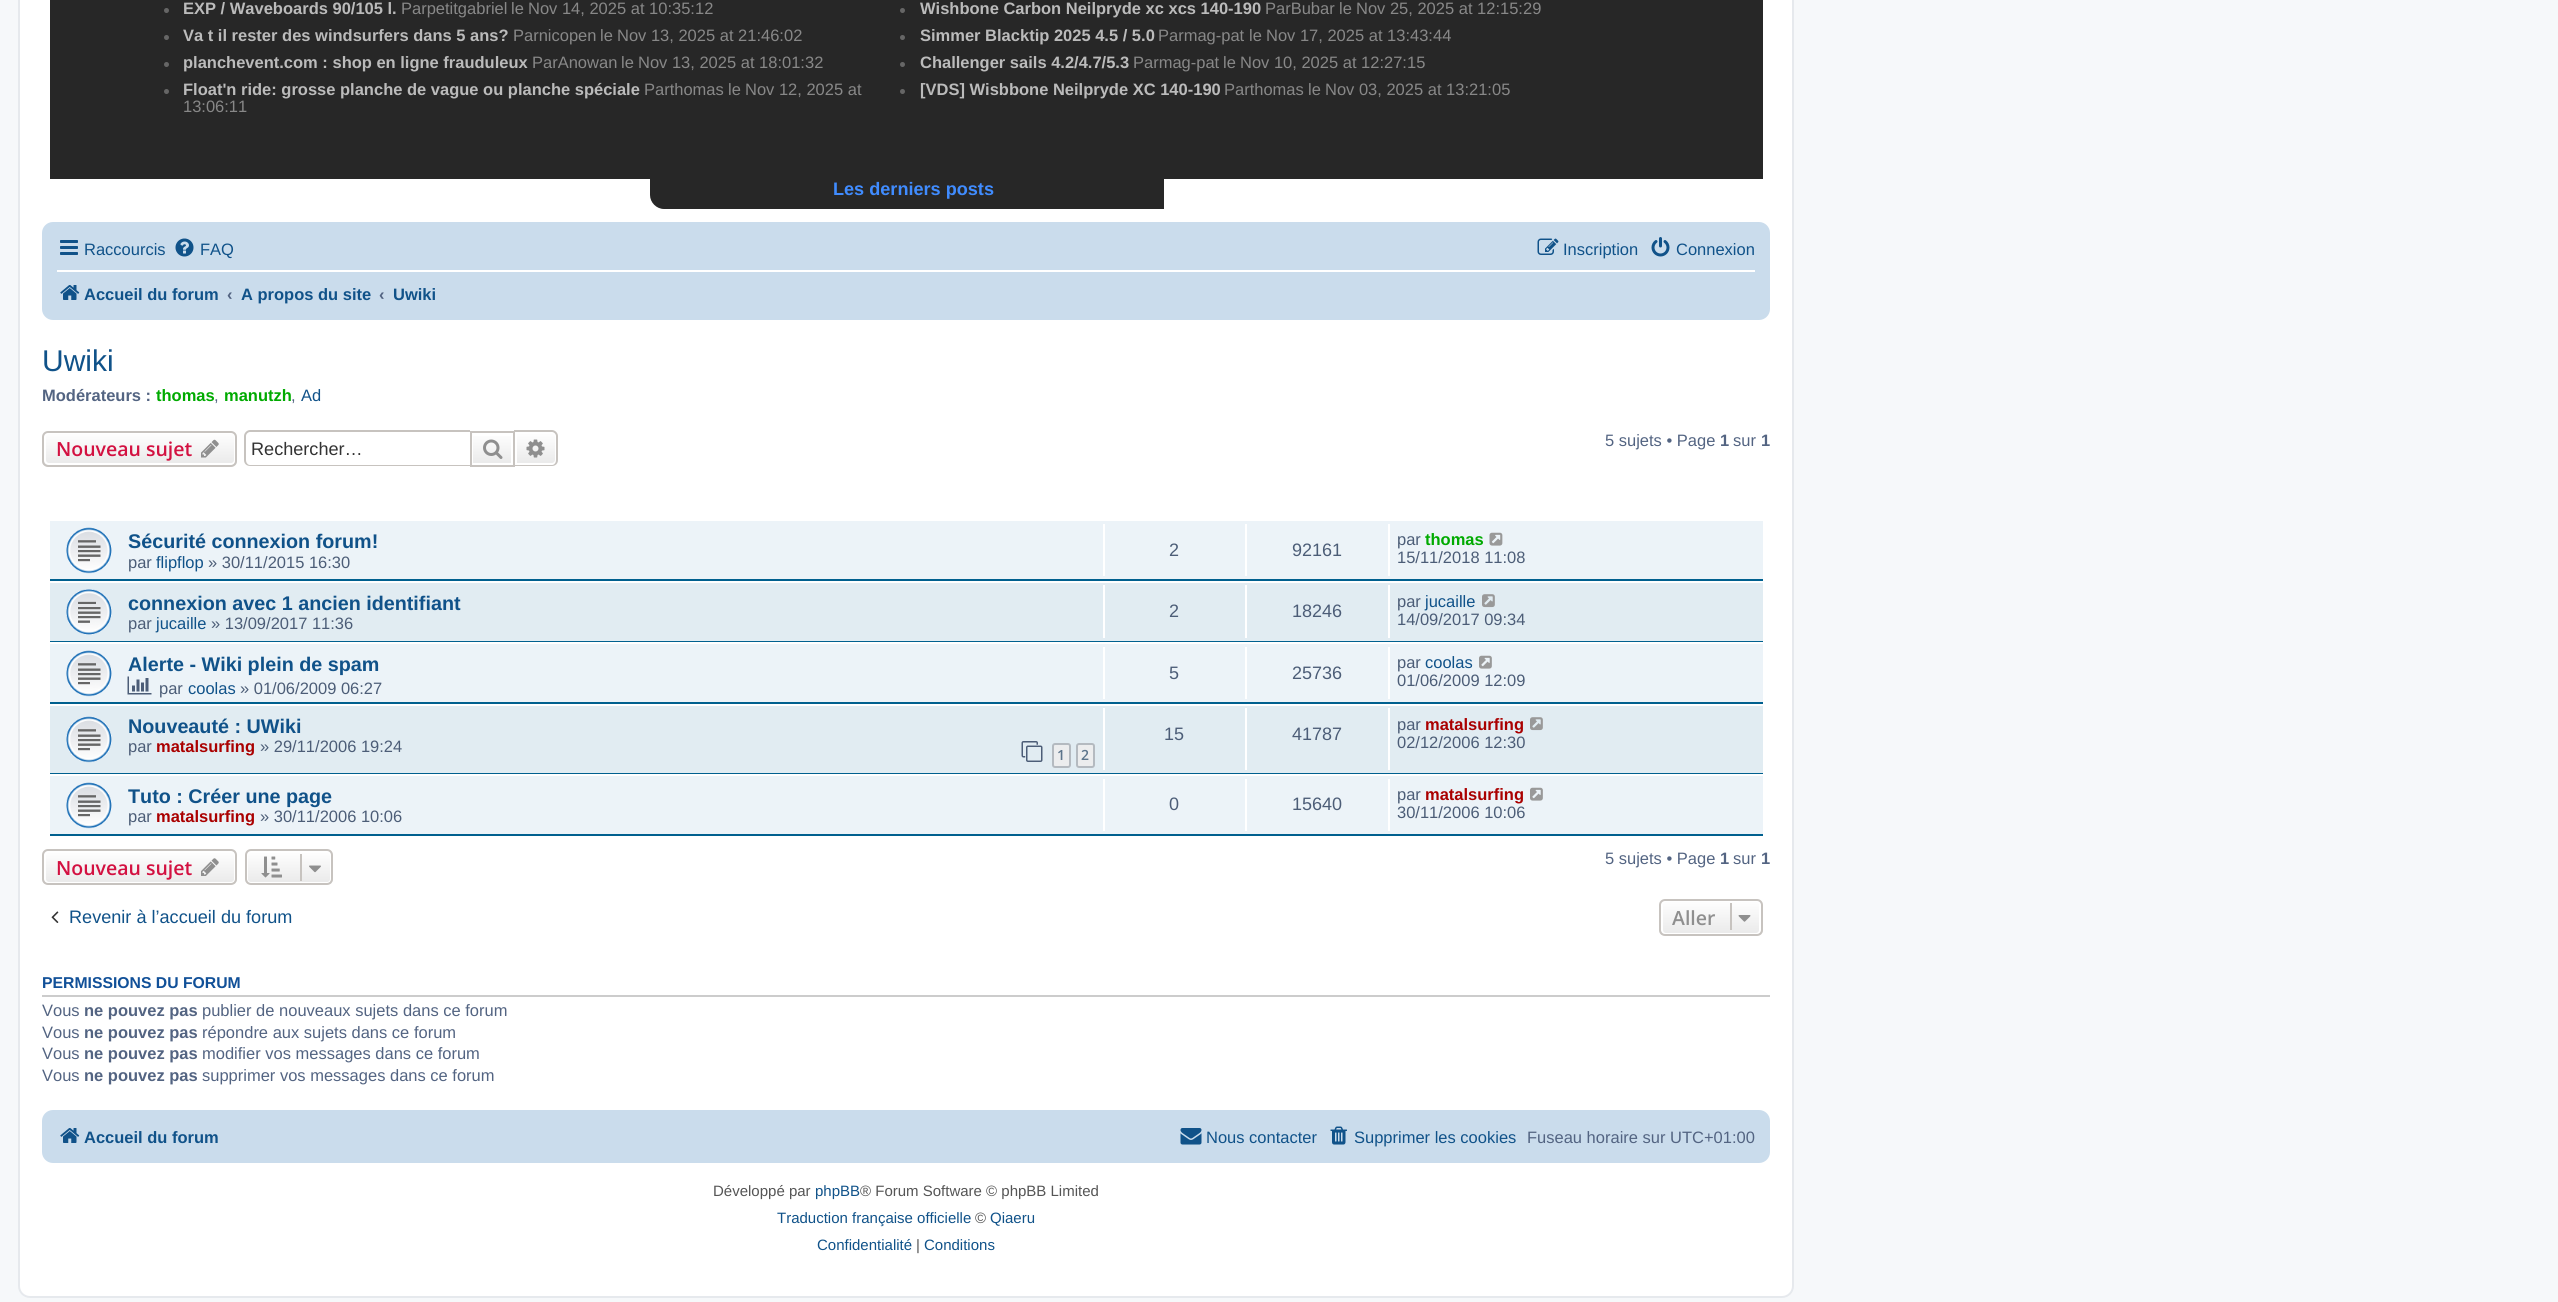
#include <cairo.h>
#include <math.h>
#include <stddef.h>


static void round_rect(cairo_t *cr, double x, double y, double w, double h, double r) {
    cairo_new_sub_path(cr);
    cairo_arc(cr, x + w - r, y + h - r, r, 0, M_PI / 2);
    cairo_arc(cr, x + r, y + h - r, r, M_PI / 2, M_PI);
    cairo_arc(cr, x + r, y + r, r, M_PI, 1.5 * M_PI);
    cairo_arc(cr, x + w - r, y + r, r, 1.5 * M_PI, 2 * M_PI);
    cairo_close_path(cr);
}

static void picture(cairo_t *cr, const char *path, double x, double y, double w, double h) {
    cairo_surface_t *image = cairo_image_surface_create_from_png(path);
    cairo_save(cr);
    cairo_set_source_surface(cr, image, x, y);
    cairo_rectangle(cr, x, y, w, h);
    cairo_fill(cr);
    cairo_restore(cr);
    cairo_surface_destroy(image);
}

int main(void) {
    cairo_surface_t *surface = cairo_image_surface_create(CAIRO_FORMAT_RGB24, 2558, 1302);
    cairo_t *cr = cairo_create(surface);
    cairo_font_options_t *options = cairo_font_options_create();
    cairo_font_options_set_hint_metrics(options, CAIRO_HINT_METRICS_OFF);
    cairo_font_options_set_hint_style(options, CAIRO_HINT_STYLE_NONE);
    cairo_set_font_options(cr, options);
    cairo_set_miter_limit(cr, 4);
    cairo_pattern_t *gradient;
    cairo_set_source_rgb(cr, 0.961, 0.969, 0.98);
    cairo_paint(cr);
    cairo_set_source_rgb(cr, 1, 1, 1);
    round_rect(cr, 19, -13, 1774, 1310, 11);
    cairo_fill_preserve(cr);
    cairo_set_source_rgb(cr, 0.902, 0.914, 0.929);
    cairo_stroke(cr);
    cairo_set_source_rgb(cr, 0.153, 0.153, 0.153);
    cairo_rectangle(cr, 50, 0, 1713, 179);
    cairo_fill(cr);
    cairo_set_source_rgb(cr, 0.4, 0.4, 0.4);
    cairo_arc(cr, 166.5, 10.5, 2.5, 0, 2 * M_PI);
    cairo_fill(cr);
    cairo_select_font_face(cr, "Liberation Sans", CAIRO_FONT_SLANT_NORMAL, CAIRO_FONT_WEIGHT_BOLD);
    cairo_set_font_size(cr, 16.5);
    cairo_set_source_rgb(cr, 0.733, 0.733, 0.733);
    cairo_move_to(cr, 183, 14);
    cairo_show_text(cr, "EXP / Waveboards 90/105 l.");
    cairo_select_font_face(cr, "Liberation Sans", CAIRO_FONT_SLANT_NORMAL, CAIRO_FONT_WEIGHT_NORMAL);
    cairo_set_source_rgb(cr, 0.533, 0.533, 0.533);
    cairo_move_to(cr, 401, 14);
    cairo_show_text(cr, "Parpetitgabriel");
    cairo_move_to(cr, 511, 14);
    cairo_show_text(cr, "le");
    cairo_move_to(cr, 528, 14);
    cairo_show_text(cr, "Nov 14, 2025 at 10:35:12");
    cairo_set_source_rgb(cr, 0.4, 0.4, 0.4);
    cairo_new_path(cr);
    cairo_arc(cr, 166.5, 37.5, 2.5, 0, 2 * M_PI);
    cairo_fill(cr);
    cairo_select_font_face(cr, "Liberation Sans", CAIRO_FONT_SLANT_NORMAL, CAIRO_FONT_WEIGHT_BOLD);
    cairo_set_source_rgb(cr, 0.733, 0.733, 0.733);
    cairo_move_to(cr, 183, 41);
    cairo_show_text(cr, "Va t il rester des windsurfers dans 5 ans?");
    cairo_select_font_face(cr, "Liberation Sans", CAIRO_FONT_SLANT_NORMAL, CAIRO_FONT_WEIGHT_NORMAL);
    cairo_set_source_rgb(cr, 0.533, 0.533, 0.533);
    cairo_move_to(cr, 513, 41);
    cairo_show_text(cr, "Parnicopen");
    cairo_move_to(cr, 600, 41);
    cairo_show_text(cr, "le");
    cairo_move_to(cr, 617, 41);
    cairo_show_text(cr, "Nov 13, 2025 at 21:46:02");
    cairo_set_source_rgb(cr, 0.4, 0.4, 0.4);
    cairo_new_path(cr);
    cairo_arc(cr, 166.5, 64.5, 2.5, 0, 2 * M_PI);
    cairo_fill(cr);
    cairo_select_font_face(cr, "Liberation Sans", CAIRO_FONT_SLANT_NORMAL, CAIRO_FONT_WEIGHT_BOLD);
    cairo_set_source_rgb(cr, 0.733, 0.733, 0.733);
    cairo_move_to(cr, 183, 68);
    cairo_show_text(cr, "planchevent.com : shop en ligne frauduleux");
    cairo_select_font_face(cr, "Liberation Sans", CAIRO_FONT_SLANT_NORMAL, CAIRO_FONT_WEIGHT_NORMAL);
    cairo_set_source_rgb(cr, 0.533, 0.533, 0.533);
    cairo_move_to(cr, 532, 68);
    cairo_show_text(cr, "ParAnowan");
    cairo_move_to(cr, 621, 68);
    cairo_show_text(cr, "le");
    cairo_move_to(cr, 638, 68);
    cairo_show_text(cr, "Nov 13, 2025 at 18:01:32");
    cairo_set_source_rgb(cr, 0.4, 0.4, 0.4);
    cairo_new_path(cr);
    cairo_arc(cr, 166.5, 91.5, 2.5, 0, 2 * M_PI);
    cairo_fill(cr);
    cairo_select_font_face(cr, "Liberation Sans", CAIRO_FONT_SLANT_NORMAL, CAIRO_FONT_WEIGHT_BOLD);
    cairo_set_source_rgb(cr, 0.733, 0.733, 0.733);
    cairo_move_to(cr, 183, 95);
    cairo_show_text(cr, "Float'n ride: grosse planche de vague ou planche spéciale");
    cairo_select_font_face(cr, "Liberation Sans", CAIRO_FONT_SLANT_NORMAL, CAIRO_FONT_WEIGHT_NORMAL);
    cairo_set_source_rgb(cr, 0.533, 0.533, 0.533);
    cairo_move_to(cr, 644, 95);
    cairo_show_text(cr, "Parthomas");
    cairo_move_to(cr, 728, 95);
    cairo_show_text(cr, "le");
    cairo_move_to(cr, 745, 95);
    cairo_show_text(cr, "Nov 12, 2025 at");
    cairo_move_to(cr, 183, 112);
    cairo_show_text(cr, "13:06:11");
    cairo_set_source_rgb(cr, 0.4, 0.4, 0.4);
    cairo_new_path(cr);
    cairo_arc(cr, 902.5, 10.5, 2.5, 0, 2 * M_PI);
    cairo_fill(cr);
    cairo_select_font_face(cr, "Liberation Sans", CAIRO_FONT_SLANT_NORMAL, CAIRO_FONT_WEIGHT_BOLD);
    cairo_set_source_rgb(cr, 0.733, 0.733, 0.733);
    cairo_move_to(cr, 920, 14);
    cairo_show_text(cr, "Wishbone Carbon Neilpryde xc xcs 140-190");
    cairo_select_font_face(cr, "Liberation Sans", CAIRO_FONT_SLANT_NORMAL, CAIRO_FONT_WEIGHT_NORMAL);
    cairo_set_source_rgb(cr, 0.533, 0.533, 0.533);
    cairo_move_to(cr, 1265, 14);
    cairo_show_text(cr, "ParBubar");
    cairo_move_to(cr, 1339, 14);
    cairo_show_text(cr, "le");
    cairo_move_to(cr, 1356, 14);
    cairo_show_text(cr, "Nov 25, 2025 at 12:15:29");
    cairo_set_source_rgb(cr, 0.4, 0.4, 0.4);
    cairo_new_path(cr);
    cairo_arc(cr, 902.5, 37.5, 2.5, 0, 2 * M_PI);
    cairo_fill(cr);
    cairo_select_font_face(cr, "Liberation Sans", CAIRO_FONT_SLANT_NORMAL, CAIRO_FONT_WEIGHT_BOLD);
    cairo_set_source_rgb(cr, 0.733, 0.733, 0.733);
    cairo_move_to(cr, 920, 41);
    cairo_show_text(cr, "Simmer Blacktip 2025 4.5 / 5.0");
    cairo_select_font_face(cr, "Liberation Sans", CAIRO_FONT_SLANT_NORMAL, CAIRO_FONT_WEIGHT_NORMAL);
    cairo_set_source_rgb(cr, 0.533, 0.533, 0.533);
    cairo_move_to(cr, 1158, 41);
    cairo_show_text(cr, "Parmag-pat");
    cairo_move_to(cr, 1249, 41);
    cairo_show_text(cr, "le");
    cairo_move_to(cr, 1266, 41);
    cairo_show_text(cr, "Nov 17, 2025 at 13:43:44");
    cairo_set_source_rgb(cr, 0.4, 0.4, 0.4);
    cairo_new_path(cr);
    cairo_arc(cr, 902.5, 64.5, 2.5, 0, 2 * M_PI);
    cairo_fill(cr);
    cairo_select_font_face(cr, "Liberation Sans", CAIRO_FONT_SLANT_NORMAL, CAIRO_FONT_WEIGHT_BOLD);
    cairo_set_source_rgb(cr, 0.733, 0.733, 0.733);
    cairo_move_to(cr, 920, 68);
    cairo_show_text(cr, "Challenger sails 4.2/4.7/5.3");
    cairo_select_font_face(cr, "Liberation Sans", CAIRO_FONT_SLANT_NORMAL, CAIRO_FONT_WEIGHT_NORMAL);
    cairo_set_source_rgb(cr, 0.533, 0.533, 0.533);
    cairo_move_to(cr, 1133, 68);
    cairo_show_text(cr, "Parmag-pat");
    cairo_move_to(cr, 1223, 68);
    cairo_show_text(cr, "le");
    cairo_move_to(cr, 1240, 68);
    cairo_show_text(cr, "Nov 10, 2025 at 12:27:15");
    cairo_set_source_rgb(cr, 0.4, 0.4, 0.4);
    cairo_new_path(cr);
    cairo_arc(cr, 902.5, 91.5, 2.5, 0, 2 * M_PI);
    cairo_fill(cr);
    cairo_select_font_face(cr, "Liberation Sans", CAIRO_FONT_SLANT_NORMAL, CAIRO_FONT_WEIGHT_BOLD);
    cairo_set_source_rgb(cr, 0.733, 0.733, 0.733);
    cairo_move_to(cr, 920, 95);
    cairo_show_text(cr, "[VDS] Wisbbone Neilpryde XC 140-190");
    cairo_select_font_face(cr, "Liberation Sans", CAIRO_FONT_SLANT_NORMAL, CAIRO_FONT_WEIGHT_NORMAL);
    cairo_set_source_rgb(cr, 0.533, 0.533, 0.533);
    cairo_move_to(cr, 1224, 95);
    cairo_show_text(cr, "Parthomas");
    cairo_move_to(cr, 1308, 95);
    cairo_show_text(cr, "le");
    cairo_move_to(cr, 1325, 95);
    cairo_show_text(cr, "Nov 03, 2025 at 13:21:05");
    cairo_set_source_rgb(cr, 0.153, 0.153, 0.153);
    cairo_new_path(cr);
    cairo_move_to(cr, 650, 179);
    cairo_line_to(cr, 1164, 179);
    cairo_line_to(cr, 1164, 209);
    cairo_line_to(cr, 664, 209);
    cairo_curve_to(cr, 656.5, 209, 650, 202.5, 650, 195);
    cairo_close_path(cr);
    cairo_fill(cr);
    cairo_select_font_face(cr, "Liberation Sans", CAIRO_FONT_SLANT_NORMAL, CAIRO_FONT_WEIGHT_BOLD);
    cairo_set_font_size(cr, 18.1);
    cairo_set_source_rgb(cr, 0.251, 0.549, 1);
    cairo_move_to(cr, 833, 195);
    cairo_show_text(cr, "Les derniers posts");
    cairo_set_source_rgb(cr, 0.792, 0.863, 0.922);
    round_rect(cr, 42, 222, 1728, 98, 11);
    cairo_fill(cr);
    picture(cr, "img1.png", 60, 240, 18, 15);
    cairo_select_font_face(cr, "Liberation Sans", CAIRO_FONT_SLANT_NORMAL, CAIRO_FONT_WEIGHT_NORMAL);
    cairo_set_font_size(cr, 16.5);
    cairo_set_source_rgb(cr, 0.063, 0.322, 0.537);
    cairo_move_to(cr, 84, 255);
    cairo_show_text(cr, "Raccourcis");
    picture(cr, "img2.png", 175, 238, 19, 19);
    cairo_move_to(cr, 200, 255);
    cairo_show_text(cr, "FAQ");
    picture(cr, "img3.png", 1537, 238, 22, 17);
    cairo_move_to(cr, 1563, 255);
    cairo_show_text(cr, "Inscription");
    picture(cr, "img4.png", 1651, 237, 19, 20);
    cairo_move_to(cr, 1676, 255);
    cairo_show_text(cr, "Connexion");
    cairo_set_source_rgb(cr, 1, 1, 1);
    cairo_rectangle(cr, 57, 270, 1698, 2);
    cairo_fill(cr);
    picture(cr, "img5.png", 60, 285, 20, 15);
    cairo_select_font_face(cr, "Liberation Sans", CAIRO_FONT_SLANT_NORMAL, CAIRO_FONT_WEIGHT_BOLD);
    cairo_set_source_rgb(cr, 0.063, 0.322, 0.537);
    cairo_move_to(cr, 84, 300);
    cairo_show_text(cr, "Accueil du forum");
    cairo_set_source_rgb(cr, 0.325, 0.392, 0.51);
    cairo_move_to(cr, 227, 300);
    cairo_show_text(cr, "‹");
    cairo_set_source_rgb(cr, 0.063, 0.322, 0.537);
    cairo_move_to(cr, 241, 300);
    cairo_show_text(cr, "A propos du site");
    cairo_set_source_rgb(cr, 0.325, 0.392, 0.51);
    cairo_move_to(cr, 379, 300);
    cairo_show_text(cr, "‹");
    cairo_set_source_rgb(cr, 0.063, 0.322, 0.537);
    cairo_move_to(cr, 393, 300);
    cairo_show_text(cr, "Uwiki");
    cairo_select_font_face(cr, "Liberation Sans", CAIRO_FONT_SLANT_NORMAL, CAIRO_FONT_WEIGHT_NORMAL);
    cairo_set_font_size(cr, 30);
    cairo_move_to(cr, 42, 371);
    cairo_show_text(cr, "Uwiki");
    cairo_select_font_face(cr, "Liberation Sans", CAIRO_FONT_SLANT_NORMAL, CAIRO_FONT_WEIGHT_BOLD);
    cairo_set_font_size(cr, 16.5);
    cairo_set_source_rgb(cr, 0.325, 0.392, 0.51);
    cairo_move_to(cr, 42, 401);
    cairo_show_text(cr, "Modérateurs :");
    cairo_set_source_rgb(cr, 0, 0.667, 0);
    cairo_move_to(cr, 156, 401);
    cairo_show_text(cr, "thomas");
    cairo_select_font_face(cr, "Liberation Sans", CAIRO_FONT_SLANT_NORMAL, CAIRO_FONT_WEIGHT_NORMAL);
    cairo_set_source_rgb(cr, 0.325, 0.392, 0.51);
    cairo_move_to(cr, 214, 401);
    cairo_show_text(cr, ",");
    cairo_select_font_face(cr, "Liberation Sans", CAIRO_FONT_SLANT_NORMAL, CAIRO_FONT_WEIGHT_BOLD);
    cairo_set_source_rgb(cr, 0, 0.667, 0);
    cairo_move_to(cr, 224, 401);
    cairo_show_text(cr, "manutzh");
    cairo_select_font_face(cr, "Liberation Sans", CAIRO_FONT_SLANT_NORMAL, CAIRO_FONT_WEIGHT_NORMAL);
    cairo_set_source_rgb(cr, 0.325, 0.392, 0.51);
    cairo_move_to(cr, 291, 401);
    cairo_show_text(cr, ",");
    cairo_set_source_rgb(cr, 0.063, 0.322, 0.537);
    cairo_move_to(cr, 301, 401);
    cairo_show_text(cr, "Ad");
    cairo_save(cr);
    round_rect(cr, 42, 431, 195, 36, 6);
    cairo_clip(cr);
    gradient = cairo_pattern_create_linear(140, 432, 140, 465);
    cairo_pattern_add_color_stop_rgba(gradient, 0, 1, 1, 1, 1);
    cairo_pattern_add_color_stop_rgba(gradient, 1, 0.914, 0.914, 0.914, 1);
    cairo_set_source(cr, gradient);
    cairo_pattern_destroy(gradient);
    cairo_rectangle(cr, 42, 432, 195, 33);
    cairo_fill(cr);
    cairo_restore(cr);
    round_rect(cr, 45, 433, 190, 31, 4);
    cairo_set_source_rgb(cr, 1, 1, 1);
    cairo_stroke(cr);
    round_rect(cr, 43, 432, 193, 34, 5);
    cairo_set_source_rgb(cr, 0.78, 0.765, 0.749);
    cairo_stroke(cr);
    cairo_select_font_face(cr, "Open Sans SemiBold", CAIRO_FONT_SLANT_NORMAL, CAIRO_FONT_WEIGHT_NORMAL);
    cairo_set_font_size(cr, 19.5);
    cairo_set_source_rgb(cr, 0.827, 0.067, 0.255);
    cairo_move_to(cr, 56, 456);
    cairo_show_text(cr, "Nouveau sujet");
    picture(cr, "img6.png", 201, 439, 18, 19);
    cairo_set_source_rgb(cr, 0.78, 0.765, 0.749);
    cairo_set_fill_rule(cr, CAIRO_FILL_RULE_EVEN_ODD);
    cairo_new_path(cr);
    cairo_move_to(cr, 250, 430);
    cairo_line_to(cr, 470, 430);
    cairo_line_to(cr, 470, 466);
    cairo_line_to(cr, 250, 466);
    cairo_curve_to(cr, 247, 466, 244, 464, 244, 460);
    cairo_line_to(cr, 244, 436);
    cairo_curve_to(cr, 244, 433, 247, 430, 250, 430);
    cairo_close_path(cr);
    cairo_move_to(cr, 250, 432);
    cairo_line_to(cr, 470, 432);
    cairo_line_to(cr, 470, 465);
    cairo_line_to(cr, 250, 465);
    cairo_curve_to(cr, 248, 465, 246, 463, 246, 460);
    cairo_line_to(cr, 246, 436);
    cairo_curve_to(cr, 246, 434, 248, 432, 250, 432);
    cairo_close_path(cr);
    cairo_fill(cr);
    cairo_select_font_face(cr, "Liberation Sans", CAIRO_FONT_SLANT_NORMAL, CAIRO_FONT_WEIGHT_NORMAL);
    cairo_set_font_size(cr, 18.1);
    cairo_set_source_rgb(cr, 0.2, 0.2, 0.2);
    cairo_move_to(cr, 251, 455);
    cairo_show_text(cr, "Rechercher…");
    gradient = cairo_pattern_create_linear(492, 432, 492, 465);
    cairo_pattern_add_color_stop_rgba(gradient, 0, 1, 1, 1, 1);
    cairo_pattern_add_color_stop_rgba(gradient, 1, 0.914, 0.914, 0.914, 1);
    cairo_set_source(cr, gradient);
    cairo_pattern_destroy(gradient);
    cairo_rectangle(cr, 473, 436, 38, 27);
    cairo_fill(cr);
    cairo_rectangle(cr, 471, 432, 43, 34);
    cairo_set_source_rgb(cr, 0.78, 0.765, 0.749);
    cairo_stroke(cr);
    picture(cr, "img7.png", 483, 439, 20, 20);
    gradient = cairo_pattern_create_linear(536, 432, 536, 465);
    cairo_pattern_add_color_stop_rgba(gradient, 0, 1, 1, 1, 1);
    cairo_pattern_add_color_stop_rgba(gradient, 1, 0.914, 0.914, 0.914, 1);
    cairo_set_source(cr, gradient);
    cairo_pattern_destroy(gradient);
    cairo_new_path(cr);
    cairo_move_to(cr, 516, 433);
    cairo_line_to(cr, 552, 433);
    cairo_curve_to(cr, 554, 433, 556, 435, 556, 437);
    cairo_line_to(cr, 556, 460);
    cairo_curve_to(cr, 556, 462, 554, 464, 552, 464);
    cairo_line_to(cr, 516, 464);
    cairo_close_path(cr);
    cairo_fill_preserve(cr);
    cairo_set_source_rgb(cr, 1, 1, 1);
    cairo_stroke(cr);
    cairo_set_source_rgb(cr, 0.78, 0.765, 0.749);
    cairo_new_path(cr);
    cairo_move_to(cr, 514, 430);
    cairo_line_to(cr, 552, 430);
    cairo_curve_to(cr, 555, 430, 558, 433, 558, 436);
    cairo_line_to(cr, 558, 460);
    cairo_curve_to(cr, 558, 464, 555, 466, 552, 466);
    cairo_line_to(cr, 514, 466);
    cairo_close_path(cr);
    cairo_move_to(cr, 514, 432);
    cairo_line_to(cr, 552, 432);
    cairo_curve_to(cr, 554, 432, 556, 434, 556, 436);
    cairo_line_to(cr, 556, 460);
    cairo_curve_to(cr, 556, 463, 554, 465, 552, 465);
    cairo_line_to(cr, 514, 465);
    cairo_close_path(cr);
    cairo_fill(cr);
    picture(cr, "img8.png", 526, 439, 19, 19);
    cairo_set_font_size(cr, 16.5);
    cairo_set_source_rgb(cr, 0.325, 0.392, 0.51);
    cairo_move_to(cr, 1605, 446);
    cairo_show_text(cr, "5 sujets • Page");
    cairo_select_font_face(cr, "Liberation Sans", CAIRO_FONT_SLANT_NORMAL, CAIRO_FONT_WEIGHT_BOLD);
    cairo_move_to(cr, 1720, 446);
    cairo_show_text(cr, "1");
    cairo_select_font_face(cr, "Liberation Sans", CAIRO_FONT_SLANT_NORMAL, CAIRO_FONT_WEIGHT_NORMAL);
    cairo_move_to(cr, 1733, 446);
    cairo_show_text(cr, "sur");
    cairo_select_font_face(cr, "Liberation Sans", CAIRO_FONT_SLANT_NORMAL, CAIRO_FONT_WEIGHT_BOLD);
    cairo_move_to(cr, 1761, 446);
    cairo_show_text(cr, "1");
    cairo_set_source_rgb(cr, 0.925, 0.953, 0.969);
    cairo_rectangle(cr, 50, 521, 1713, 58);
    cairo_fill(cr);
    cairo_set_source_rgb(cr, 0, 0.376, 0.561);
    cairo_rectangle(cr, 50, 579, 1713, 2);
    cairo_fill(cr);
    picture(cr, "img9.png", 66, 527, 46, 47);
    cairo_set_font_size(cr, 19.75);
    cairo_set_source_rgb(cr, 0.063, 0.322, 0.537);
    cairo_move_to(cr, 128, 548);
    cairo_show_text(cr, "Sécurité connexion forum!");
    cairo_select_font_face(cr, "Liberation Sans", CAIRO_FONT_SLANT_NORMAL, CAIRO_FONT_WEIGHT_NORMAL);
    cairo_set_font_size(cr, 16.5);
    cairo_set_source_rgb(cr, 0.298, 0.365, 0.467);
    cairo_move_to(cr, 128, 568);
    cairo_show_text(cr, "par");
    cairo_set_source_rgb(cr, 0.063, 0.322, 0.537);
    cairo_move_to(cr, 156, 568);
    cairo_show_text(cr, "flipflop");
    cairo_set_source_rgb(cr, 0.298, 0.365, 0.467);
    cairo_move_to(cr, 208, 568);
    cairo_show_text(cr, "» 30/11/2015 16:30");
    cairo_set_source_rgb(cr, 1, 1, 1);
    cairo_rectangle(cr, 1103, 524, 2, 52);
    cairo_fill(cr);
    cairo_set_font_size(cr, 18);
    cairo_set_source_rgb(cr, 0.298, 0.365, 0.467);
    cairo_move_to(cr, 1169, 556);
    cairo_show_text(cr, "2");
    cairo_set_source_rgb(cr, 1, 1, 1);
    cairo_rectangle(cr, 1245, 524, 2, 52);
    cairo_fill(cr);
    cairo_set_source_rgb(cr, 0.298, 0.365, 0.467);
    cairo_move_to(cr, 1292, 556);
    cairo_show_text(cr, "92161");
    cairo_set_source_rgb(cr, 1, 1, 1);
    cairo_rectangle(cr, 1388, 524, 2, 52);
    cairo_fill(cr);
    cairo_set_font_size(cr, 16.5);
    cairo_set_source_rgb(cr, 0.298, 0.365, 0.467);
    cairo_move_to(cr, 1397, 545);
    cairo_show_text(cr, "par");
    cairo_select_font_face(cr, "Liberation Sans", CAIRO_FONT_SLANT_NORMAL, CAIRO_FONT_WEIGHT_BOLD);
    cairo_set_source_rgb(cr, 0, 0.667, 0);
    cairo_move_to(cr, 1425, 545);
    cairo_show_text(cr, "thomas");
    picture(cr, "img10.png", 1489, 532, 14, 14);
    cairo_select_font_face(cr, "Liberation Sans", CAIRO_FONT_SLANT_NORMAL, CAIRO_FONT_WEIGHT_NORMAL);
    cairo_set_source_rgb(cr, 0.298, 0.365, 0.467);
    cairo_move_to(cr, 1397, 563);
    cairo_show_text(cr, "15/11/2018 11:08");
    cairo_set_source_rgb(cr, 0.882, 0.922, 0.949);
    cairo_rectangle(cr, 50, 583, 1713, 58);
    cairo_fill(cr);
    cairo_set_source_rgb(cr, 0, 0.376, 0.561);
    cairo_rectangle(cr, 50, 641, 1713, 1);
    cairo_fill(cr);
    picture(cr, "img11.png", 66, 589, 46, 46);
    cairo_select_font_face(cr, "Liberation Sans", CAIRO_FONT_SLANT_NORMAL, CAIRO_FONT_WEIGHT_BOLD);
    cairo_set_font_size(cr, 19.75);
    cairo_set_source_rgb(cr, 0.063, 0.322, 0.537);
    cairo_move_to(cr, 128, 610);
    cairo_show_text(cr, "connexion avec 1 ancien identifiant");
    cairo_select_font_face(cr, "Liberation Sans", CAIRO_FONT_SLANT_NORMAL, CAIRO_FONT_WEIGHT_NORMAL);
    cairo_set_font_size(cr, 16.5);
    cairo_set_source_rgb(cr, 0.298, 0.365, 0.467);
    cairo_move_to(cr, 128, 629);
    cairo_show_text(cr, "par");
    cairo_set_source_rgb(cr, 0.063, 0.322, 0.537);
    cairo_move_to(cr, 156, 629);
    cairo_show_text(cr, "jucaille");
    cairo_set_source_rgb(cr, 0.298, 0.365, 0.467);
    cairo_move_to(cr, 211, 629);
    cairo_show_text(cr, "» 13/09/2017 11:36");
    cairo_set_source_rgb(cr, 1, 1, 1);
    cairo_rectangle(cr, 1103, 585, 2, 53);
    cairo_fill(cr);
    cairo_set_font_size(cr, 18);
    cairo_set_source_rgb(cr, 0.298, 0.365, 0.467);
    cairo_move_to(cr, 1169, 617);
    cairo_show_text(cr, "2");
    cairo_set_source_rgb(cr, 1, 1, 1);
    cairo_rectangle(cr, 1245, 585, 2, 53);
    cairo_fill(cr);
    cairo_set_source_rgb(cr, 0.298, 0.365, 0.467);
    cairo_move_to(cr, 1292, 617);
    cairo_show_text(cr, "18246");
    cairo_set_source_rgb(cr, 1, 1, 1);
    cairo_rectangle(cr, 1388, 585, 2, 53);
    cairo_fill(cr);
    cairo_set_font_size(cr, 16.5);
    cairo_set_source_rgb(cr, 0.298, 0.365, 0.467);
    cairo_move_to(cr, 1397, 607);
    cairo_show_text(cr, "par");
    cairo_set_source_rgb(cr, 0.063, 0.322, 0.537);
    cairo_move_to(cr, 1425, 607);
    cairo_show_text(cr, "jucaille");
    picture(cr, "img12.png", 1482, 594, 13, 14);
    cairo_set_source_rgb(cr, 0.298, 0.365, 0.467);
    cairo_move_to(cr, 1397, 625);
    cairo_show_text(cr, "14/09/2017 09:34");
    cairo_set_source_rgb(cr, 0.925, 0.953, 0.969);
    cairo_rectangle(cr, 50, 644, 1713, 58);
    cairo_fill(cr);
    cairo_set_source_rgb(cr, 0, 0.376, 0.561);
    cairo_rectangle(cr, 50, 702, 1713, 2);
    cairo_fill(cr);
    picture(cr, "img9.png", 66, 650, 46, 47);
    cairo_select_font_face(cr, "Liberation Sans", CAIRO_FONT_SLANT_NORMAL, CAIRO_FONT_WEIGHT_BOLD);
    cairo_set_font_size(cr, 19.75);
    cairo_set_source_rgb(cr, 0.063, 0.322, 0.537);
    cairo_move_to(cr, 128, 671);
    cairo_show_text(cr, "Alerte - Wiki plein de spam");
    picture(cr, "img13.png", 127, 676, 25, 19);
    cairo_select_font_face(cr, "Liberation Sans", CAIRO_FONT_SLANT_NORMAL, CAIRO_FONT_WEIGHT_NORMAL);
    cairo_set_font_size(cr, 16.5);
    cairo_set_source_rgb(cr, 0.298, 0.365, 0.467);
    cairo_move_to(cr, 159, 694);
    cairo_show_text(cr, "par");
    cairo_set_source_rgb(cr, 0.063, 0.322, 0.537);
    cairo_move_to(cr, 188, 694);
    cairo_show_text(cr, "coolas");
    cairo_set_source_rgb(cr, 0.298, 0.365, 0.467);
    cairo_move_to(cr, 240, 694);
    cairo_show_text(cr, "» 01/06/2009 06:27");
    cairo_set_source_rgb(cr, 1, 1, 1);
    cairo_rectangle(cr, 1103, 647, 2, 52);
    cairo_fill(cr);
    cairo_set_font_size(cr, 18);
    cairo_set_source_rgb(cr, 0.298, 0.365, 0.467);
    cairo_move_to(cr, 1169, 679);
    cairo_show_text(cr, "5");
    cairo_set_source_rgb(cr, 1, 1, 1);
    cairo_rectangle(cr, 1245, 647, 2, 52);
    cairo_fill(cr);
    cairo_set_source_rgb(cr, 0.298, 0.365, 0.467);
    cairo_move_to(cr, 1292, 679);
    cairo_show_text(cr, "25736");
    cairo_set_source_rgb(cr, 1, 1, 1);
    cairo_rectangle(cr, 1388, 647, 2, 52);
    cairo_fill(cr);
    cairo_set_font_size(cr, 16.5);
    cairo_set_source_rgb(cr, 0.298, 0.365, 0.467);
    cairo_move_to(cr, 1397, 668);
    cairo_show_text(cr, "par");
    cairo_set_source_rgb(cr, 0.063, 0.322, 0.537);
    cairo_move_to(cr, 1425, 668);
    cairo_show_text(cr, "coolas");
    picture(cr, "img14.png", 1479, 655, 13, 14);
    cairo_set_source_rgb(cr, 0.298, 0.365, 0.467);
    cairo_move_to(cr, 1397, 686);
    cairo_show_text(cr, "01/06/2009 12:09");
    cairo_set_source_rgb(cr, 0.882, 0.922, 0.949);
    cairo_rectangle(cr, 50, 706, 1713, 67);
    cairo_fill(cr);
    cairo_set_source_rgb(cr, 0, 0.376, 0.561);
    cairo_rectangle(cr, 50, 773, 1713, 1);
    cairo_fill(cr);
    picture(cr, "img15.png", 66, 716, 46, 47);
    cairo_select_font_face(cr, "Liberation Sans", CAIRO_FONT_SLANT_NORMAL, CAIRO_FONT_WEIGHT_BOLD);
    cairo_set_font_size(cr, 19.75);
    cairo_set_source_rgb(cr, 0.063, 0.322, 0.537);
    cairo_move_to(cr, 128, 733);
    cairo_show_text(cr, "Nouveauté : UWiki");
    cairo_select_font_face(cr, "Liberation Sans", CAIRO_FONT_SLANT_NORMAL, CAIRO_FONT_WEIGHT_NORMAL);
    cairo_set_font_size(cr, 16.5);
    cairo_set_source_rgb(cr, 0.298, 0.365, 0.467);
    cairo_move_to(cr, 128, 752);
    cairo_show_text(cr, "par");
    cairo_select_font_face(cr, "Liberation Sans", CAIRO_FONT_SLANT_NORMAL, CAIRO_FONT_WEIGHT_BOLD);
    cairo_set_source_rgb(cr, 0.667, 0, 0);
    cairo_move_to(cr, 156, 752);
    cairo_show_text(cr, "matalsurfing");
    cairo_select_font_face(cr, "Liberation Sans", CAIRO_FONT_SLANT_NORMAL, CAIRO_FONT_WEIGHT_NORMAL);
    cairo_set_source_rgb(cr, 0.298, 0.365, 0.467);
    cairo_move_to(cr, 260, 752);
    cairo_show_text(cr, "» 29/11/2006 19:24");
    picture(cr, "img16.png", 1021, 741, 22, 21);
    cairo_set_source_rgb(cr, 0.925, 0.929, 0.933);
    round_rect(cr, 1053, 744, 17, 23, 2);
    cairo_fill_preserve(cr);
    cairo_set_source_rgb(cr, 0.706, 0.729, 0.753);
    cairo_stroke(cr);
    cairo_select_font_face(cr, "Open Sans SemiBold", CAIRO_FONT_SLANT_NORMAL, CAIRO_FONT_WEIGHT_NORMAL);
    cairo_set_font_size(cr, 14);
    cairo_set_source_rgb(cr, 0.361, 0.459, 0.549);
    cairo_move_to(cr, 1057, 760);
    cairo_show_text(cr, "1");
    cairo_set_source_rgb(cr, 0.925, 0.929, 0.933);
    round_rect(cr, 1077, 744, 17, 23, 2);
    cairo_fill_preserve(cr);
    cairo_set_source_rgb(cr, 0.706, 0.729, 0.753);
    cairo_stroke(cr);
    cairo_set_source_rgb(cr, 0.361, 0.459, 0.549);
    cairo_move_to(cr, 1081, 760);
    cairo_show_text(cr, "2");
    cairo_set_source_rgb(cr, 1, 1, 1);
    cairo_rectangle(cr, 1103, 708, 2, 62);
    cairo_fill(cr);
    cairo_select_font_face(cr, "Liberation Sans", CAIRO_FONT_SLANT_NORMAL, CAIRO_FONT_WEIGHT_NORMAL);
    cairo_set_font_size(cr, 18);
    cairo_set_source_rgb(cr, 0.298, 0.365, 0.467);
    cairo_move_to(cr, 1164, 740);
    cairo_show_text(cr, "15");
    cairo_set_source_rgb(cr, 1, 1, 1);
    cairo_rectangle(cr, 1245, 708, 2, 62);
    cairo_fill(cr);
    cairo_set_source_rgb(cr, 0.298, 0.365, 0.467);
    cairo_move_to(cr, 1292, 740);
    cairo_show_text(cr, "41787");
    cairo_set_source_rgb(cr, 1, 1, 1);
    cairo_rectangle(cr, 1388, 708, 2, 62);
    cairo_fill(cr);
    cairo_set_font_size(cr, 16.5);
    cairo_set_source_rgb(cr, 0.298, 0.365, 0.467);
    cairo_move_to(cr, 1397, 730);
    cairo_show_text(cr, "par");
    cairo_select_font_face(cr, "Liberation Sans", CAIRO_FONT_SLANT_NORMAL, CAIRO_FONT_WEIGHT_BOLD);
    cairo_set_source_rgb(cr, 0.667, 0, 0);
    cairo_move_to(cr, 1425, 730);
    cairo_show_text(cr, "matalsurfing");
    picture(cr, "img12.png", 1530, 717, 13, 14);
    cairo_select_font_face(cr, "Liberation Sans", CAIRO_FONT_SLANT_NORMAL, CAIRO_FONT_WEIGHT_NORMAL);
    cairo_set_source_rgb(cr, 0.298, 0.365, 0.467);
    cairo_move_to(cr, 1397, 748);
    cairo_show_text(cr, "02/12/2006 12:30");
    cairo_set_source_rgb(cr, 0.925, 0.953, 0.969);
    cairo_rectangle(cr, 50, 776, 1713, 58);
    cairo_fill(cr);
    cairo_set_source_rgb(cr, 0, 0.376, 0.561);
    cairo_rectangle(cr, 50, 834, 1713, 2);
    cairo_fill(cr);
    picture(cr, "img9.png", 66, 782, 46, 47);
    cairo_select_font_face(cr, "Liberation Sans", CAIRO_FONT_SLANT_NORMAL, CAIRO_FONT_WEIGHT_BOLD);
    cairo_set_font_size(cr, 19.75);
    cairo_set_source_rgb(cr, 0.063, 0.322, 0.537);
    cairo_move_to(cr, 128, 803);
    cairo_show_text(cr, "Tuto : Créer une page");
    cairo_select_font_face(cr, "Liberation Sans", CAIRO_FONT_SLANT_NORMAL, CAIRO_FONT_WEIGHT_NORMAL);
    cairo_set_font_size(cr, 16.5);
    cairo_set_source_rgb(cr, 0.298, 0.365, 0.467);
    cairo_move_to(cr, 128, 822);
    cairo_show_text(cr, "par");
    cairo_select_font_face(cr, "Liberation Sans", CAIRO_FONT_SLANT_NORMAL, CAIRO_FONT_WEIGHT_BOLD);
    cairo_set_source_rgb(cr, 0.667, 0, 0);
    cairo_move_to(cr, 156, 822);
    cairo_show_text(cr, "matalsurfing");
    cairo_select_font_face(cr, "Liberation Sans", CAIRO_FONT_SLANT_NORMAL, CAIRO_FONT_WEIGHT_NORMAL);
    cairo_set_source_rgb(cr, 0.298, 0.365, 0.467);
    cairo_move_to(cr, 260, 822);
    cairo_show_text(cr, "» 30/11/2006 10:06");
    cairo_set_source_rgb(cr, 1, 1, 1);
    cairo_rectangle(cr, 1103, 779, 2, 52);
    cairo_fill(cr);
    cairo_set_font_size(cr, 18);
    cairo_set_source_rgb(cr, 0.298, 0.365, 0.467);
    cairo_move_to(cr, 1169, 810);
    cairo_show_text(cr, "0");
    cairo_set_source_rgb(cr, 1, 1, 1);
    cairo_rectangle(cr, 1245, 779, 2, 52);
    cairo_fill(cr);
    cairo_set_source_rgb(cr, 0.298, 0.365, 0.467);
    cairo_move_to(cr, 1292, 810);
    cairo_show_text(cr, "15640");
    cairo_set_source_rgb(cr, 1, 1, 1);
    cairo_rectangle(cr, 1388, 779, 2, 52);
    cairo_fill(cr);
    cairo_set_font_size(cr, 16.5);
    cairo_set_source_rgb(cr, 0.298, 0.365, 0.467);
    cairo_move_to(cr, 1397, 800);
    cairo_show_text(cr, "par");
    cairo_select_font_face(cr, "Liberation Sans", CAIRO_FONT_SLANT_NORMAL, CAIRO_FONT_WEIGHT_BOLD);
    cairo_set_source_rgb(cr, 0.667, 0, 0);
    cairo_move_to(cr, 1425, 800);
    cairo_show_text(cr, "matalsurfing");
    picture(cr, "img14.png", 1530, 787, 13, 14);
    cairo_select_font_face(cr, "Liberation Sans", CAIRO_FONT_SLANT_NORMAL, CAIRO_FONT_WEIGHT_NORMAL);
    cairo_set_source_rgb(cr, 0.298, 0.365, 0.467);
    cairo_move_to(cr, 1397, 818);
    cairo_show_text(cr, "30/11/2006 10:06");
    cairo_save(cr);
    cairo_set_fill_rule(cr, CAIRO_FILL_RULE_WINDING);
    round_rect(cr, 42, 849, 195, 36, 6);
    cairo_clip(cr);
    gradient = cairo_pattern_create_linear(140, 851, 140, 884);
    cairo_pattern_add_color_stop_rgba(gradient, 0, 1, 1, 1, 1);
    cairo_pattern_add_color_stop_rgba(gradient, 1, 0.914, 0.914, 0.914, 1);
    cairo_set_source(cr, gradient);
    cairo_pattern_destroy(gradient);
    cairo_rectangle(cr, 42, 851, 195, 33);
    cairo_fill(cr);
    cairo_restore(cr);
    round_rect(cr, 45, 852, 190, 31, 4);
    cairo_set_source_rgb(cr, 1, 1, 1);
    cairo_stroke(cr);
    round_rect(cr, 43, 850, 193, 34, 5);
    cairo_set_source_rgb(cr, 0.78, 0.765, 0.749);
    cairo_stroke(cr);
    cairo_select_font_face(cr, "Open Sans SemiBold", CAIRO_FONT_SLANT_NORMAL, CAIRO_FONT_WEIGHT_NORMAL);
    cairo_set_font_size(cr, 19.5);
    cairo_set_source_rgb(cr, 0.827, 0.067, 0.255);
    cairo_move_to(cr, 56, 875);
    cairo_show_text(cr, "Nouveau sujet");
    picture(cr, "img17.png", 201, 858, 18, 18);
    cairo_save(cr);
    cairo_set_fill_rule(cr, CAIRO_FILL_RULE_WINDING);
    round_rect(cr, 245, 849, 88, 36, 6);
    cairo_clip(cr);
    gradient = cairo_pattern_create_linear(289, 851, 289, 884);
    cairo_pattern_add_color_stop_rgba(gradient, 0, 1, 1, 1, 1);
    cairo_pattern_add_color_stop_rgba(gradient, 1, 0.914, 0.914, 0.914, 1);
    cairo_set_source(cr, gradient);
    cairo_pattern_destroy(gradient);
    cairo_rectangle(cr, 245, 851, 88, 33);
    cairo_fill(cr);
    cairo_restore(cr);
    round_rect(cr, 247, 852, 84, 31, 4);
    cairo_set_source_rgb(cr, 1, 1, 1);
    cairo_stroke(cr);
    round_rect(cr, 246, 850, 86, 34, 5);
    cairo_set_source_rgb(cr, 0.78, 0.765, 0.749);
    cairo_stroke(cr);
    picture(cr, "img18.png", 261, 856, 21, 22);
    cairo_rectangle(cr, 300, 854, 2, 27);
    cairo_fill(cr);
    picture(cr, "img19.png", 309, 865, 12, 8);
    cairo_select_font_face(cr, "Liberation Sans", CAIRO_FONT_SLANT_NORMAL, CAIRO_FONT_WEIGHT_NORMAL);
    cairo_set_font_size(cr, 16.5);
    cairo_set_source_rgb(cr, 0.325, 0.392, 0.51);
    cairo_move_to(cr, 1605, 864);
    cairo_show_text(cr, "5 sujets • Page");
    cairo_select_font_face(cr, "Liberation Sans", CAIRO_FONT_SLANT_NORMAL, CAIRO_FONT_WEIGHT_BOLD);
    cairo_move_to(cr, 1720, 864);
    cairo_show_text(cr, "1");
    cairo_select_font_face(cr, "Liberation Sans", CAIRO_FONT_SLANT_NORMAL, CAIRO_FONT_WEIGHT_NORMAL);
    cairo_move_to(cr, 1733, 864);
    cairo_show_text(cr, "sur");
    cairo_select_font_face(cr, "Liberation Sans", CAIRO_FONT_SLANT_NORMAL, CAIRO_FONT_WEIGHT_BOLD);
    cairo_move_to(cr, 1761, 864);
    cairo_show_text(cr, "1");
    picture(cr, "img20.png", 51, 911, 8, 12);
    cairo_select_font_face(cr, "Liberation Sans", CAIRO_FONT_SLANT_NORMAL, CAIRO_FONT_WEIGHT_NORMAL);
    cairo_set_font_size(cr, 18.1);
    cairo_set_source_rgb(cr, 0.063, 0.322, 0.537);
    cairo_move_to(cr, 69, 923);
    cairo_show_text(cr, "Revenir à l’accueil du forum");
    cairo_save(cr);
    cairo_set_fill_rule(cr, CAIRO_FILL_RULE_WINDING);
    round_rect(cr, 1659, 899, 104, 37, 6);
    cairo_clip(cr);
    gradient = cairo_pattern_create_linear(1711, 900, 1711, 935);
    cairo_pattern_add_color_stop_rgba(gradient, 0, 1, 1, 1, 1);
    cairo_pattern_add_color_stop_rgba(gradient, 1, 0.914, 0.914, 0.914, 1);
    cairo_set_source(cr, gradient);
    cairo_pattern_destroy(gradient);
    cairo_rectangle(cr, 1659, 900, 104, 35);
    cairo_fill(cr);
    cairo_restore(cr);
    round_rect(cr, 1662, 901, 98, 33, 4);
    cairo_set_source_rgb(cr, 1, 1, 1);
    cairo_stroke(cr);
    round_rect(cr, 1660, 900, 102, 35, 5);
    cairo_set_source_rgb(cr, 0.78, 0.765, 0.749);
    cairo_stroke(cr);
    cairo_select_font_face(cr, "Open Sans SemiBold", CAIRO_FONT_SLANT_NORMAL, CAIRO_FONT_WEIGHT_NORMAL);
    cairo_set_font_size(cr, 19.5);
    cairo_set_source_rgb(cr, 0.561, 0.561, 0.561);
    cairo_move_to(cr, 1672, 925);
    cairo_show_text(cr, "Aller");
    cairo_set_source_rgb(cr, 0.78, 0.765, 0.749);
    cairo_rectangle(cr, 1730, 903, 2, 27);
    cairo_fill(cr);
    picture(cr, "img21.png", 1738, 915, 13, 7);
    cairo_set_source_rgb(cr, 0.8, 0.8, 0.8);
    cairo_rectangle(cr, 42, 995, 1728, 2);
    cairo_fill(cr);
    cairo_select_font_face(cr, "Liberation Sans", CAIRO_FONT_SLANT_NORMAL, CAIRO_FONT_WEIGHT_BOLD);
    cairo_set_font_size(cr, 15.75);
    cairo_set_source_rgb(cr, 0.067, 0.314, 0.596);
    cairo_move_to(cr, 42, 988);
    cairo_show_text(cr, "PERMISSIONS DU FORUM");
    cairo_select_font_face(cr, "Liberation Sans", CAIRO_FONT_SLANT_NORMAL, CAIRO_FONT_WEIGHT_NORMAL);
    cairo_set_font_size(cr, 16.5);
    cairo_set_source_rgb(cr, 0.325, 0.392, 0.51);
    cairo_move_to(cr, 42, 1016);
    cairo_show_text(cr, "Vous");
    cairo_select_font_face(cr, "Liberation Sans", CAIRO_FONT_SLANT_NORMAL, CAIRO_FONT_WEIGHT_BOLD);
    cairo_move_to(cr, 84, 1016);
    cairo_show_text(cr, "ne pouvez pas");
    cairo_select_font_face(cr, "Liberation Sans", CAIRO_FONT_SLANT_NORMAL, CAIRO_FONT_WEIGHT_NORMAL);
    cairo_move_to(cr, 202, 1016);
    cairo_show_text(cr, "publier de nouveaux sujets dans ce forum");
    cairo_move_to(cr, 42, 1038);
    cairo_show_text(cr, "Vous");
    cairo_select_font_face(cr, "Liberation Sans", CAIRO_FONT_SLANT_NORMAL, CAIRO_FONT_WEIGHT_BOLD);
    cairo_move_to(cr, 84, 1038);
    cairo_show_text(cr, "ne pouvez pas");
    cairo_select_font_face(cr, "Liberation Sans", CAIRO_FONT_SLANT_NORMAL, CAIRO_FONT_WEIGHT_NORMAL);
    cairo_move_to(cr, 202, 1038);
    cairo_show_text(cr, "répondre aux sujets dans ce forum");
    cairo_move_to(cr, 42, 1059);
    cairo_show_text(cr, "Vous");
    cairo_select_font_face(cr, "Liberation Sans", CAIRO_FONT_SLANT_NORMAL, CAIRO_FONT_WEIGHT_BOLD);
    cairo_move_to(cr, 84, 1059);
    cairo_show_text(cr, "ne pouvez pas");
    cairo_select_font_face(cr, "Liberation Sans", CAIRO_FONT_SLANT_NORMAL, CAIRO_FONT_WEIGHT_NORMAL);
    cairo_move_to(cr, 202, 1059);
    cairo_show_text(cr, "modifier vos messages dans ce forum");
    cairo_move_to(cr, 42, 1081);
    cairo_show_text(cr, "Vous");
    cairo_select_font_face(cr, "Liberation Sans", CAIRO_FONT_SLANT_NORMAL, CAIRO_FONT_WEIGHT_BOLD);
    cairo_move_to(cr, 84, 1081);
    cairo_show_text(cr, "ne pouvez pas");
    cairo_select_font_face(cr, "Liberation Sans", CAIRO_FONT_SLANT_NORMAL, CAIRO_FONT_WEIGHT_NORMAL);
    cairo_move_to(cr, 202, 1081);
    cairo_show_text(cr, "supprimer vos messages dans ce forum");
    cairo_set_source_rgb(cr, 0.792, 0.863, 0.922);
    round_rect(cr, 42, 1110, 1728, 53, 11);
    cairo_fill(cr);
    picture(cr, "img5.png", 60, 1128, 20, 15);
    cairo_select_font_face(cr, "Liberation Sans", CAIRO_FONT_SLANT_NORMAL, CAIRO_FONT_WEIGHT_BOLD);
    cairo_set_source_rgb(cr, 0.063, 0.322, 0.537);
    cairo_move_to(cr, 84, 1143);
    cairo_show_text(cr, "Accueil du forum");
    picture(cr, "img22.png", 1180, 1128, 22, 17);
    cairo_select_font_face(cr, "Liberation Sans", CAIRO_FONT_SLANT_NORMAL, CAIRO_FONT_WEIGHT_NORMAL);
    cairo_move_to(cr, 1206, 1143);
    cairo_show_text(cr, "Nous contacter");
    picture(cr, "img23.png", 1330, 1126, 17, 19);
    cairo_move_to(cr, 1354, 1143);
    cairo_show_text(cr, "Supprimer les cookies");
    cairo_set_source_rgb(cr, 0.325, 0.392, 0.51);
    cairo_move_to(cr, 1527, 1143);
    cairo_show_text(cr, "Fuseau horaire sur UTC+01:00");
    cairo_set_font_size(cr, 15);
    cairo_set_source_rgb(cr, 0.333, 0.333, 0.333);
    cairo_move_to(cr, 713, 1196);
    cairo_show_text(cr, "Développé par");
    cairo_set_source_rgb(cr, 0.063, 0.322, 0.537);
    cairo_move_to(cr, 815, 1196);
    cairo_show_text(cr, "phpBB");
    cairo_set_source_rgb(cr, 0.333, 0.333, 0.333);
    cairo_move_to(cr, 860, 1196);
    cairo_show_text(cr, "® Forum Software © phpBB Limited");
    cairo_set_source_rgb(cr, 0.063, 0.322, 0.537);
    cairo_move_to(cr, 777, 1223);
    cairo_show_text(cr, "Traduction française officielle");
    cairo_set_source_rgb(cr, 0.333, 0.333, 0.333);
    cairo_move_to(cr, 975, 1223);
    cairo_show_text(cr, "©");
    cairo_set_source_rgb(cr, 0.063, 0.322, 0.537);
    cairo_move_to(cr, 990, 1223);
    cairo_show_text(cr, "Qiaeru");
    cairo_move_to(cr, 817, 1250);
    cairo_show_text(cr, "Confidentialité");
    cairo_set_source_rgb(cr, 0.333, 0.333, 0.333);
    cairo_move_to(cr, 916, 1250);
    cairo_show_text(cr, "|");
    cairo_set_source_rgb(cr, 0.063, 0.322, 0.537);
    cairo_move_to(cr, 924, 1250);
    cairo_show_text(cr, "Conditions");
    cairo_surface_write_to_png(surface, "page.png");
    cairo_font_options_destroy(options);
    cairo_destroy(cr);
    cairo_surface_destroy(surface);
    return 0;
}
